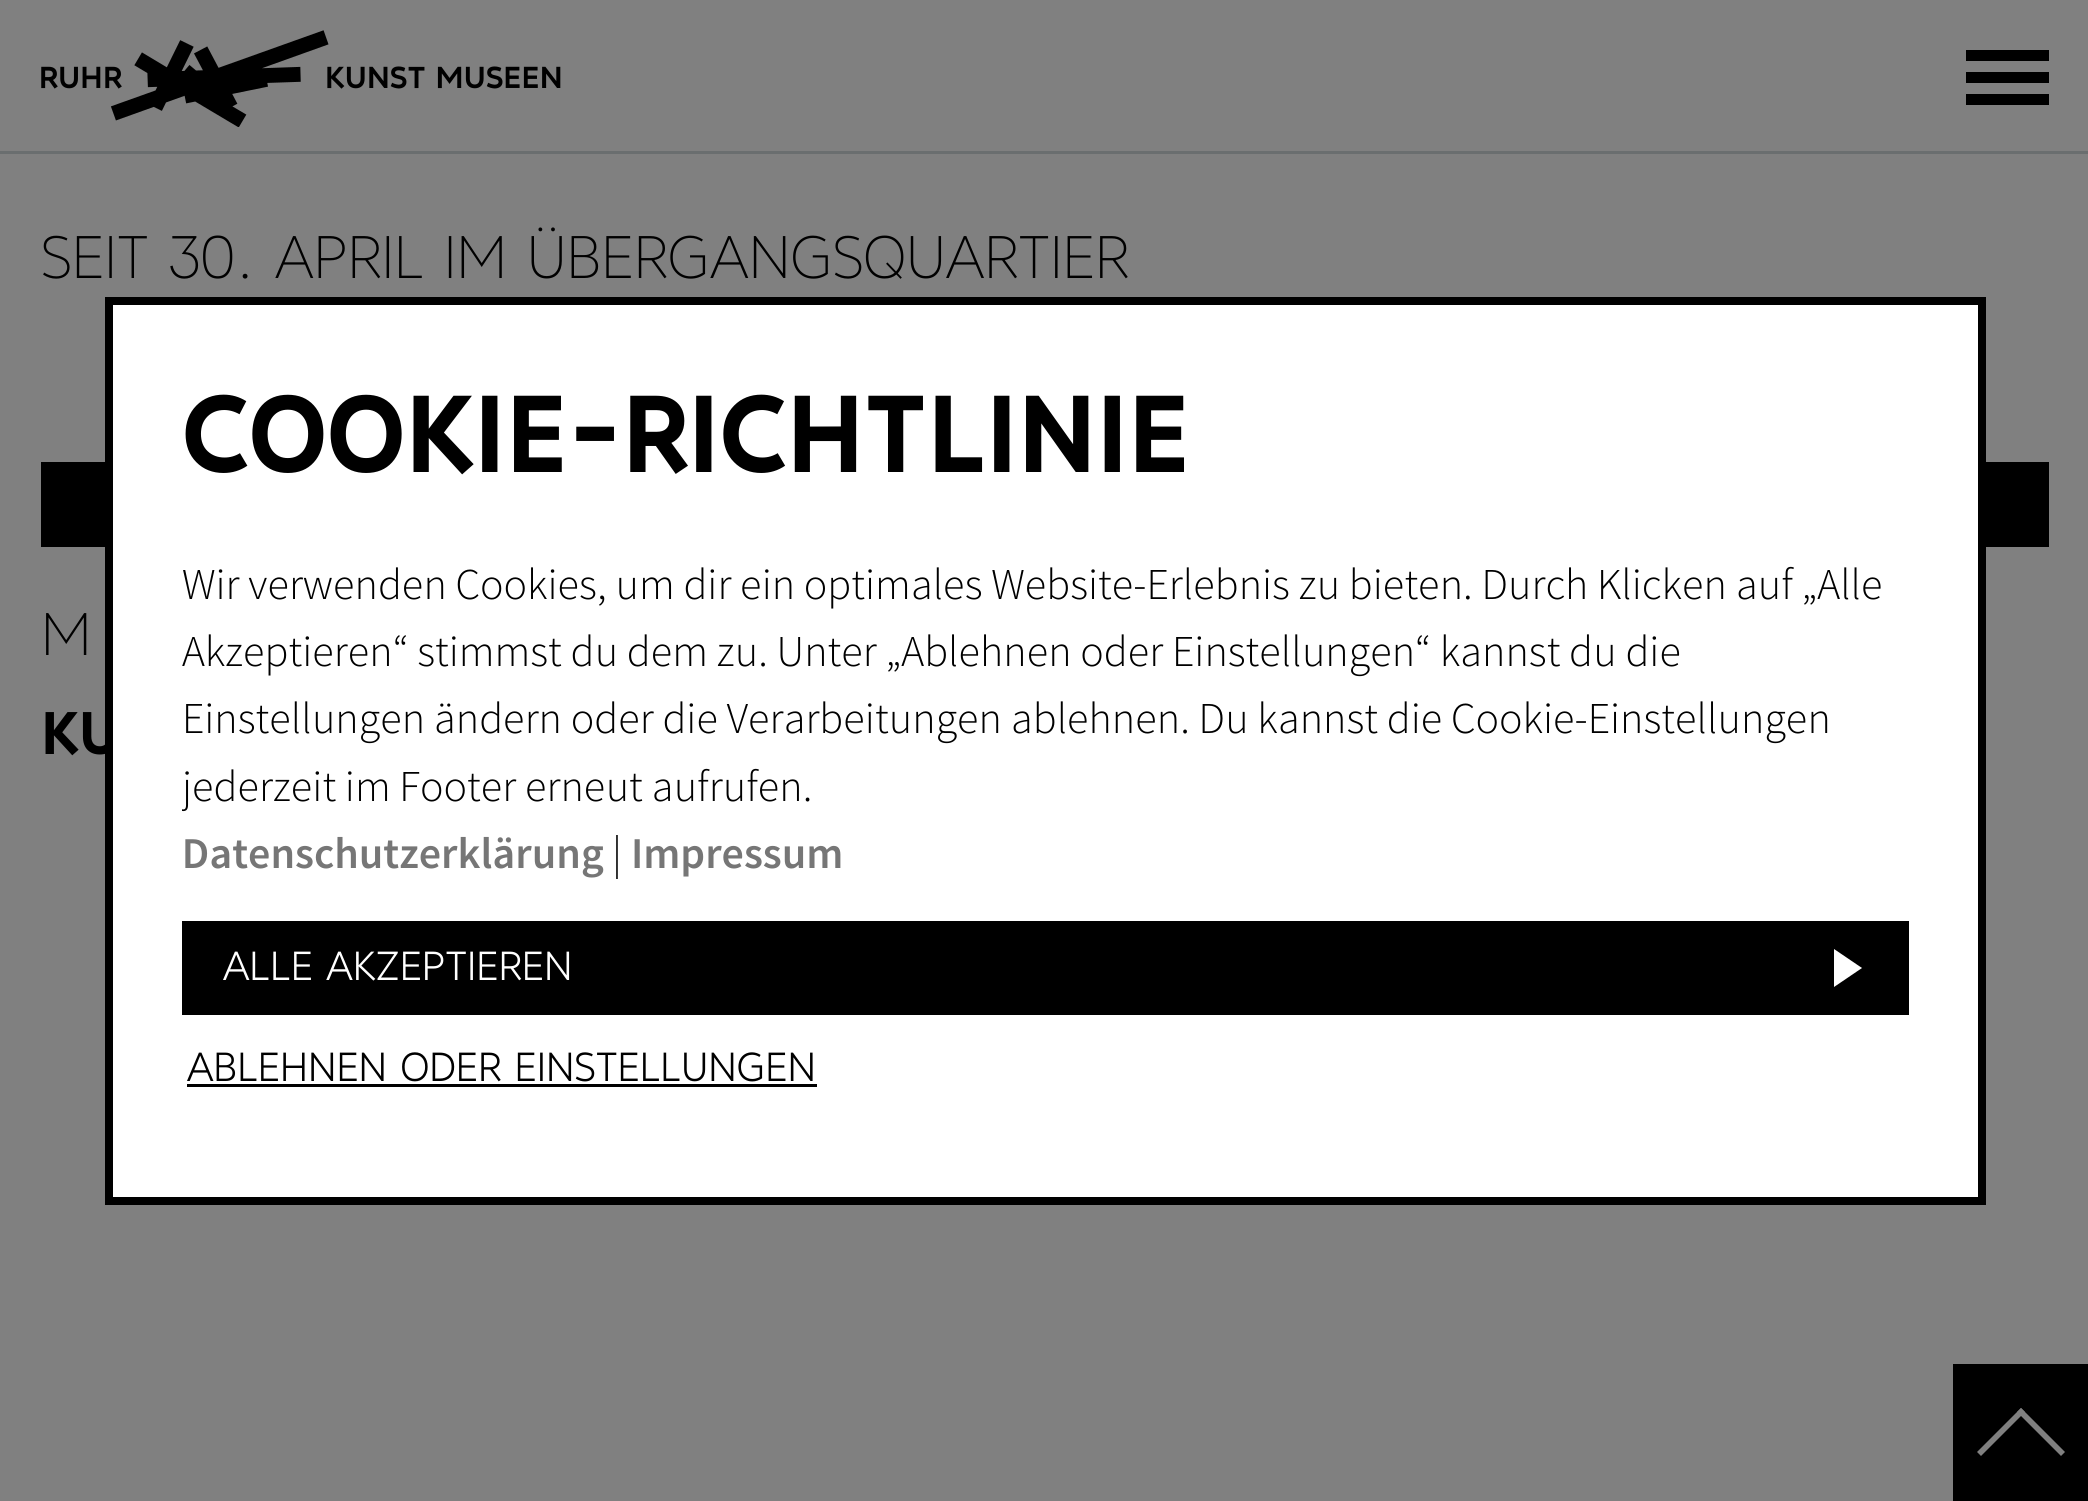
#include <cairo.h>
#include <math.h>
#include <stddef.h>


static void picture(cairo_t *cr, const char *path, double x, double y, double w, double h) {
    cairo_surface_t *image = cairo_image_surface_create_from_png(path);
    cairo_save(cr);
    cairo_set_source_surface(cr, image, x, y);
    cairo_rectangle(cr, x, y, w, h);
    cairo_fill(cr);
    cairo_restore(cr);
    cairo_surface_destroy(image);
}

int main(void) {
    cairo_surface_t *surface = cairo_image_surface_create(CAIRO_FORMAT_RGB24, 2088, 1501);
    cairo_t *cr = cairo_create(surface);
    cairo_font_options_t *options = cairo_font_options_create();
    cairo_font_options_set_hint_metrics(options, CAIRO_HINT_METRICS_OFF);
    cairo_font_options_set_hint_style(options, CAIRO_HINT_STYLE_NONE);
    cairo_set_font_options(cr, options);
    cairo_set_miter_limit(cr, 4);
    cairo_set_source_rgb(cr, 0.502, 0.502, 0.502);
    cairo_paint(cr);
    cairo_set_source_rgb(cr, 0.416, 0.431, 0.435);
    cairo_rectangle(cr, 0, 151, 2088, 3);
    cairo_fill(cr);
    picture(cr, "img1.png", 41, 30, 520, 97);
    cairo_set_source_rgb(cr, 0, 0, 0);
    cairo_rectangle(cr, 1966, 72, 83, 11);
    cairo_fill(cr);
    cairo_rectangle(cr, 1966, 50, 83, 11);
    cairo_fill(cr);
    cairo_rectangle(cr, 1966, 94, 83, 11);
    cairo_fill(cr);
    cairo_select_font_face(cr, "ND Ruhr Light", CAIRO_FONT_SLANT_NORMAL, CAIRO_FONT_WEIGHT_NORMAL);
    cairo_set_font_size(cr, 56.9);
    cairo_move_to(cr, 41, 278);
    cairo_show_text(cr, "SEIT 30. APRIL IM ÜBERGANGSQUARTIER");
    cairo_rectangle(cr, 41, 462, 2008, 85);
    cairo_fill(cr);
    cairo_move_to(cr, 41, 655);
    cairo_show_text(cr, "M");
    cairo_select_font_face(cr, "ND Ruhr", CAIRO_FONT_SLANT_NORMAL, CAIRO_FONT_WEIGHT_BOLD);
    cairo_move_to(cr, 41, 754);
    cairo_show_text(cr, "KU");
    cairo_rectangle(cr, 1953, 1364, 135, 137);
    cairo_fill(cr);
    cairo_set_source_rgb(cr, 0.502, 0.502, 0.502);
    cairo_new_path(cr);
    cairo_move_to(cr, 2021, 1408);
    cairo_line_to(cr, 2065, 1452);
    cairo_line_to(cr, 2061, 1456);
    cairo_line_to(cr, 2017, 1412);
    cairo_close_path(cr);
    cairo_fill(cr);
    cairo_new_path(cr);
    cairo_move_to(cr, 2025, 1412);
    cairo_line_to(cr, 1981, 1456);
    cairo_line_to(cr, 1977, 1452);
    cairo_line_to(cr, 2021, 1408);
    cairo_close_path(cr);
    cairo_fill(cr);
    cairo_set_source_rgb(cr, 1, 1, 1);
    cairo_rectangle(cr, 109, 301, 1873, 900);
    cairo_fill_preserve(cr);
    cairo_set_source_rgb(cr, 0, 0, 0);
    cairo_set_line_width(cr, 8);
    cairo_stroke(cr);
    cairo_set_font_size(cr, 103.5);
    cairo_move_to(cr, 182, 472);
    cairo_show_text(cr, "COOKIE-RICHTLINIE");
    cairo_select_font_face(cr, "Source Sans Pro Light", CAIRO_FONT_SLANT_NORMAL, CAIRO_FONT_WEIGHT_NORMAL);
    cairo_set_font_size(cr, 44);
    cairo_move_to(cr, 182, 599);
    cairo_show_text(cr, "Wir verwenden Cookies, um dir ein optimales Website-Erlebnis zu bieten. Durch Klicken auf „Alle");
    cairo_move_to(cr, 182, 666);
    cairo_show_text(cr, "Akzeptieren“ stimmst du dem zu. Unter „Ablehnen oder Einstellungen“ kannst du die");
    cairo_move_to(cr, 182, 733);
    cairo_show_text(cr, "Einstellungen ändern oder die Verarbeitungen ablehnen. Du kannst die Cookie-Einstellungen");
    cairo_save(cr);
    cairo_rectangle(cr, 182, 553, 1727, 338);
    cairo_clip(cr);
    cairo_move_to(cr, 182, 801);
    cairo_show_text(cr, "jederzeit im Footer erneut aufrufen.");
    cairo_restore(cr);
    cairo_select_font_face(cr, "Source Sans Pro SemiBold", CAIRO_FONT_SLANT_NORMAL, CAIRO_FONT_WEIGHT_NORMAL);
    cairo_set_source_rgb(cr, 0.463, 0.463, 0.463);
    cairo_move_to(cr, 182, 868);
    cairo_show_text(cr, "Datenschutzerklärung");
    cairo_select_font_face(cr, "Source Sans Pro Light", CAIRO_FONT_SLANT_NORMAL, CAIRO_FONT_WEIGHT_NORMAL);
    cairo_set_source_rgb(cr, 0, 0, 0);
    cairo_move_to(cr, 612, 868);
    cairo_show_text(cr, "|");
    cairo_select_font_face(cr, "Source Sans Pro SemiBold", CAIRO_FONT_SLANT_NORMAL, CAIRO_FONT_WEIGHT_NORMAL);
    cairo_set_source_rgb(cr, 0.463, 0.463, 0.463);
    cairo_move_to(cr, 631, 868);
    cairo_show_text(cr, "Impressum");
    cairo_set_source_rgb(cr, 0, 0, 0);
    cairo_rectangle(cr, 182, 921, 1727, 94);
    cairo_fill(cr);
    cairo_select_font_face(cr, "ND Ruhr", CAIRO_FONT_SLANT_NORMAL, CAIRO_FONT_WEIGHT_NORMAL);
    cairo_set_font_size(cr, 38.5);
    cairo_set_source_rgb(cr, 1, 1, 1);
    cairo_move_to(cr, 223, 980);
    cairo_show_text(cr, "Alle akzeptieren");
    cairo_new_path(cr);
    cairo_move_to(cr, 1834, 987);
    cairo_line_to(cr, 1834, 949);
    cairo_line_to(cr, 1862, 968);
    cairo_close_path(cr);
    cairo_fill(cr);
    cairo_set_source_rgb(cr, 0, 0, 0);
    cairo_move_to(cr, 187, 1081);
    cairo_show_text(cr, "Ablehnen oder Einstellungen");
    cairo_rectangle(cr, 187, 1084, 630, 3);
    cairo_fill(cr);
    cairo_surface_write_to_png(surface, "page.png");
    cairo_font_options_destroy(options);
    cairo_destroy(cr);
    cairo_surface_destroy(surface);
    return 0;
}
